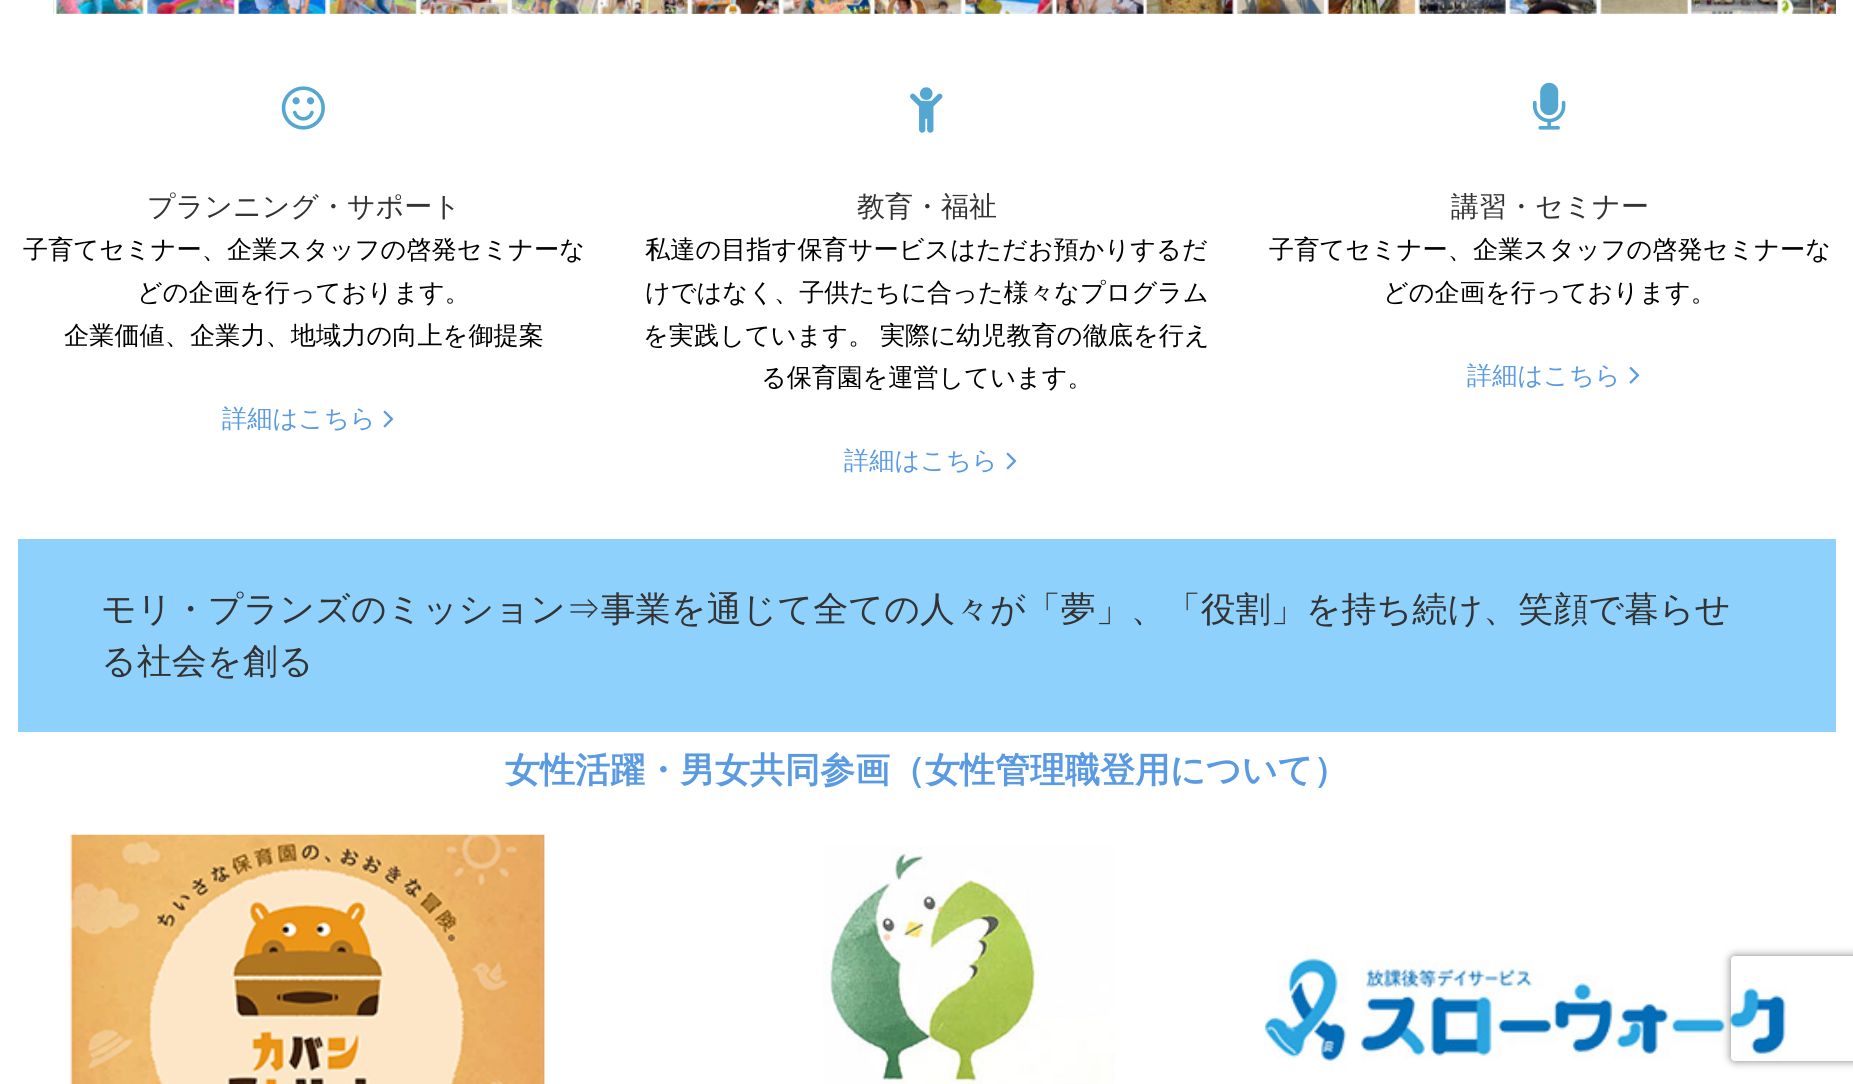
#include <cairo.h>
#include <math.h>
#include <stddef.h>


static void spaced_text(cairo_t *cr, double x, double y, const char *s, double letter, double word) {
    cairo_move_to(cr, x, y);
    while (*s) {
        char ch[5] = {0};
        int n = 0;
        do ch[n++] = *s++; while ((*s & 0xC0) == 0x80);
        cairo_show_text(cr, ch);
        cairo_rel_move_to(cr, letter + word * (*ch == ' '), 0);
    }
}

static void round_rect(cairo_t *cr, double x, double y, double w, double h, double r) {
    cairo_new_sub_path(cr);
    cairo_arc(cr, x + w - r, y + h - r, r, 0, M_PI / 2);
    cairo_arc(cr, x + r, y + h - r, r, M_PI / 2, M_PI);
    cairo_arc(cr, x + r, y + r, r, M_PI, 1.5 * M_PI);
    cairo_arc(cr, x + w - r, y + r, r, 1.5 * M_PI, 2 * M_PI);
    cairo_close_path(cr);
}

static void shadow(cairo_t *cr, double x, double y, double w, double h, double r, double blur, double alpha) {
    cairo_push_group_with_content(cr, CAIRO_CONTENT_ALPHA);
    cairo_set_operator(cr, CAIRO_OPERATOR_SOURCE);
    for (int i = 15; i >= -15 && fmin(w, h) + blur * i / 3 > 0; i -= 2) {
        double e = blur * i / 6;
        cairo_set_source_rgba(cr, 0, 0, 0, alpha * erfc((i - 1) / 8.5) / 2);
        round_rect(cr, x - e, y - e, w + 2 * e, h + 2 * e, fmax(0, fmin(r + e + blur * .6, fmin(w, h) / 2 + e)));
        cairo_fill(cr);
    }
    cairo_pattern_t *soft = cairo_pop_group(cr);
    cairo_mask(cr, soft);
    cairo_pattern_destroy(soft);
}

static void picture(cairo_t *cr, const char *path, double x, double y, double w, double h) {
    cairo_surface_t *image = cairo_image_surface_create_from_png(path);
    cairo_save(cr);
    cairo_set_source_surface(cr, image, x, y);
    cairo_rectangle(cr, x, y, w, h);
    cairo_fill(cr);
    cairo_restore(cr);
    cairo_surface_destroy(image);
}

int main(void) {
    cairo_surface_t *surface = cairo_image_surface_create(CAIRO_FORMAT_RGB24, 1853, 1084);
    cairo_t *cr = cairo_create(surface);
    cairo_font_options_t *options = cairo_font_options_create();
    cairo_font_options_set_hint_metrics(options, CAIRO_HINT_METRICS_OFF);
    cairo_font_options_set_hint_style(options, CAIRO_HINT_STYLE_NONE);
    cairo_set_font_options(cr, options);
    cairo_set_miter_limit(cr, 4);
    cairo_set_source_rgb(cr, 1, 1, 1);
    cairo_paint(cr);
    picture(cr, "img1.png", 53, 0, 1783, 14);
    picture(cr, "img2.png", 281, 86, 44, 44);
    cairo_select_font_face(cr, "WenQuanYi Zen Hei Medium", CAIRO_FONT_SLANT_NORMAL, CAIRO_FONT_WEIGHT_NORMAL);
    cairo_set_font_size(cr, 28);
    cairo_set_source_rgb(cr, 0.2, 0.2, 0.2);
    cairo_move_to(cr, 147, 216);
    cairo_show_text(cr, "プランニング・サポート");
    cairo_set_font_size(cr, 25.2);
    cairo_set_source_rgb(cr, 0, 0, 0);
    cairo_move_to(cr, 23, 258);
    cairo_show_text(cr, "子育てセミナー、企業スタッフの啓発セミナーな");
    cairo_move_to(cr, 137, 301);
    cairo_show_text(cr, "どの企画を行っております。");
    cairo_move_to(cr, 64, 344);
    cairo_show_text(cr, "企業価値、企業力、地域力の向上を御提案");
    cairo_set_source_rgb(cr, 0.353, 0.604, 0.886);
    cairo_move_to(cr, 222, 427);
    cairo_show_text(cr, "詳細はこちら");
    picture(cr, "img3.png", 383, 410, 11, 18);
    picture(cr, "img4.png", 910, 87, 33, 46);
    cairo_set_font_size(cr, 28);
    cairo_set_source_rgb(cr, 0.2, 0.2, 0.2);
    cairo_move_to(cr, 857, 216);
    cairo_show_text(cr, "教育・福祉");
    cairo_set_font_size(cr, 25.2);
    cairo_set_source_rgb(cr, 0, 0, 0);
    cairo_move_to(cr, 645, 258);
    cairo_show_text(cr, "私達の目指す保育サービスはただお預かりするだ");
    cairo_move_to(cr, 645, 301);
    cairo_show_text(cr, "けではなく、子供たちに合った様々なプログラム");
    spaced_text(cr, 643, 344, "を実践しています。 実際に幼児教育の徹底を行え", 0, -1);
    cairo_move_to(cr, 761, 386);
    cairo_show_text(cr, "る保育園を運営しています。");
    cairo_set_source_rgb(cr, 0.353, 0.604, 0.886);
    cairo_move_to(cr, 844, 469);
    cairo_show_text(cr, "詳細はこちら");
    picture(cr, "img3.png", 1006, 452, 11, 18);
    picture(cr, "img5.png", 1533, 82, 33, 48);
    cairo_set_font_size(cr, 28);
    cairo_set_source_rgb(cr, 0.2, 0.2, 0.2);
    cairo_move_to(cr, 1451, 216);
    cairo_show_text(cr, "講習・セミナー");
    cairo_set_font_size(cr, 25.2);
    cairo_set_source_rgb(cr, 0, 0, 0);
    cairo_move_to(cr, 1269, 258);
    cairo_show_text(cr, "子育てセミナー、企業スタッフの啓発セミナーな");
    cairo_move_to(cr, 1383, 301);
    cairo_show_text(cr, "どの企画を行っております。");
    cairo_set_source_rgb(cr, 0.353, 0.604, 0.886);
    cairo_move_to(cr, 1467, 384);
    cairo_show_text(cr, "詳細はこちら");
    picture(cr, "img6.png", 1629, 366, 11, 18);
    cairo_set_source_rgb(cr, 0.557, 0.82, 0.988);
    cairo_rectangle(cr, 18, 539, 1818, 193);
    cairo_fill(cr);
    cairo_set_font_size(cr, 35);
    cairo_set_source_rgb(cr, 0.2, 0.2, 0.2);
    cairo_move_to(cr, 101, 621);
    cairo_show_text(cr, "モリ・プランズのミッション⇒事業を通じて全ての人々が「夢」、「役割」を持ち続け、笑顔で暮らせ");
    cairo_move_to(cr, 101, 673);
    cairo_show_text(cr, "る社会を創る");
    cairo_select_font_face(cr, "WenQuanYi Zen Hei", CAIRO_FONT_SLANT_NORMAL, CAIRO_FONT_WEIGHT_BOLD);
    cairo_set_source_rgb(cr, 0.353, 0.604, 0.886);
    cairo_move_to(cr, 505, 782);
    cairo_show_text(cr, "女性活躍・男女共同参画（女性管理職登用について）");
    picture(cr, "img7.png", 69, 834, 476, 250);
    picture(cr, "img8.png", 823, 846, 292, 238);
    picture(cr, "img9.png", 1263, 947, 525, 126);
    cairo_save(cr);
    cairo_set_fill_rule(cr, CAIRO_FILL_RULE_EVEN_ODD);
    cairo_new_path(cr);
    cairo_move_to(cr, 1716, 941);
    cairo_line_to(cr, 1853, 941);
    cairo_line_to(cr, 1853, 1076);
    cairo_line_to(cr, 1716, 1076);
    cairo_close_path(cr);
    cairo_move_to(cr, 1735, 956);
    cairo_line_to(cr, 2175, 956);
    cairo_curve_to(cr, 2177, 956, 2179, 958, 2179, 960);
    cairo_line_to(cr, 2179, 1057);
    cairo_curve_to(cr, 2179, 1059, 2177, 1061, 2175, 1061);
    cairo_line_to(cr, 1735, 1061);
    cairo_curve_to(cr, 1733, 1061, 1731, 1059, 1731, 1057);
    cairo_line_to(cr, 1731, 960);
    cairo_curve_to(cr, 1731, 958, 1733, 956, 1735, 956);
    cairo_close_path(cr);
    cairo_clip(cr);
    cairo_set_source_rgb(cr, 0.502, 0.502, 0.502);
    shadow(cr, 1731, 956, 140, 105, 4, 4.5, 1);
    cairo_restore(cr);
    cairo_surface_write_to_png(surface, "page.png");
    cairo_font_options_destroy(options);
    cairo_destroy(cr);
    cairo_surface_destroy(surface);
    return 0;
}
